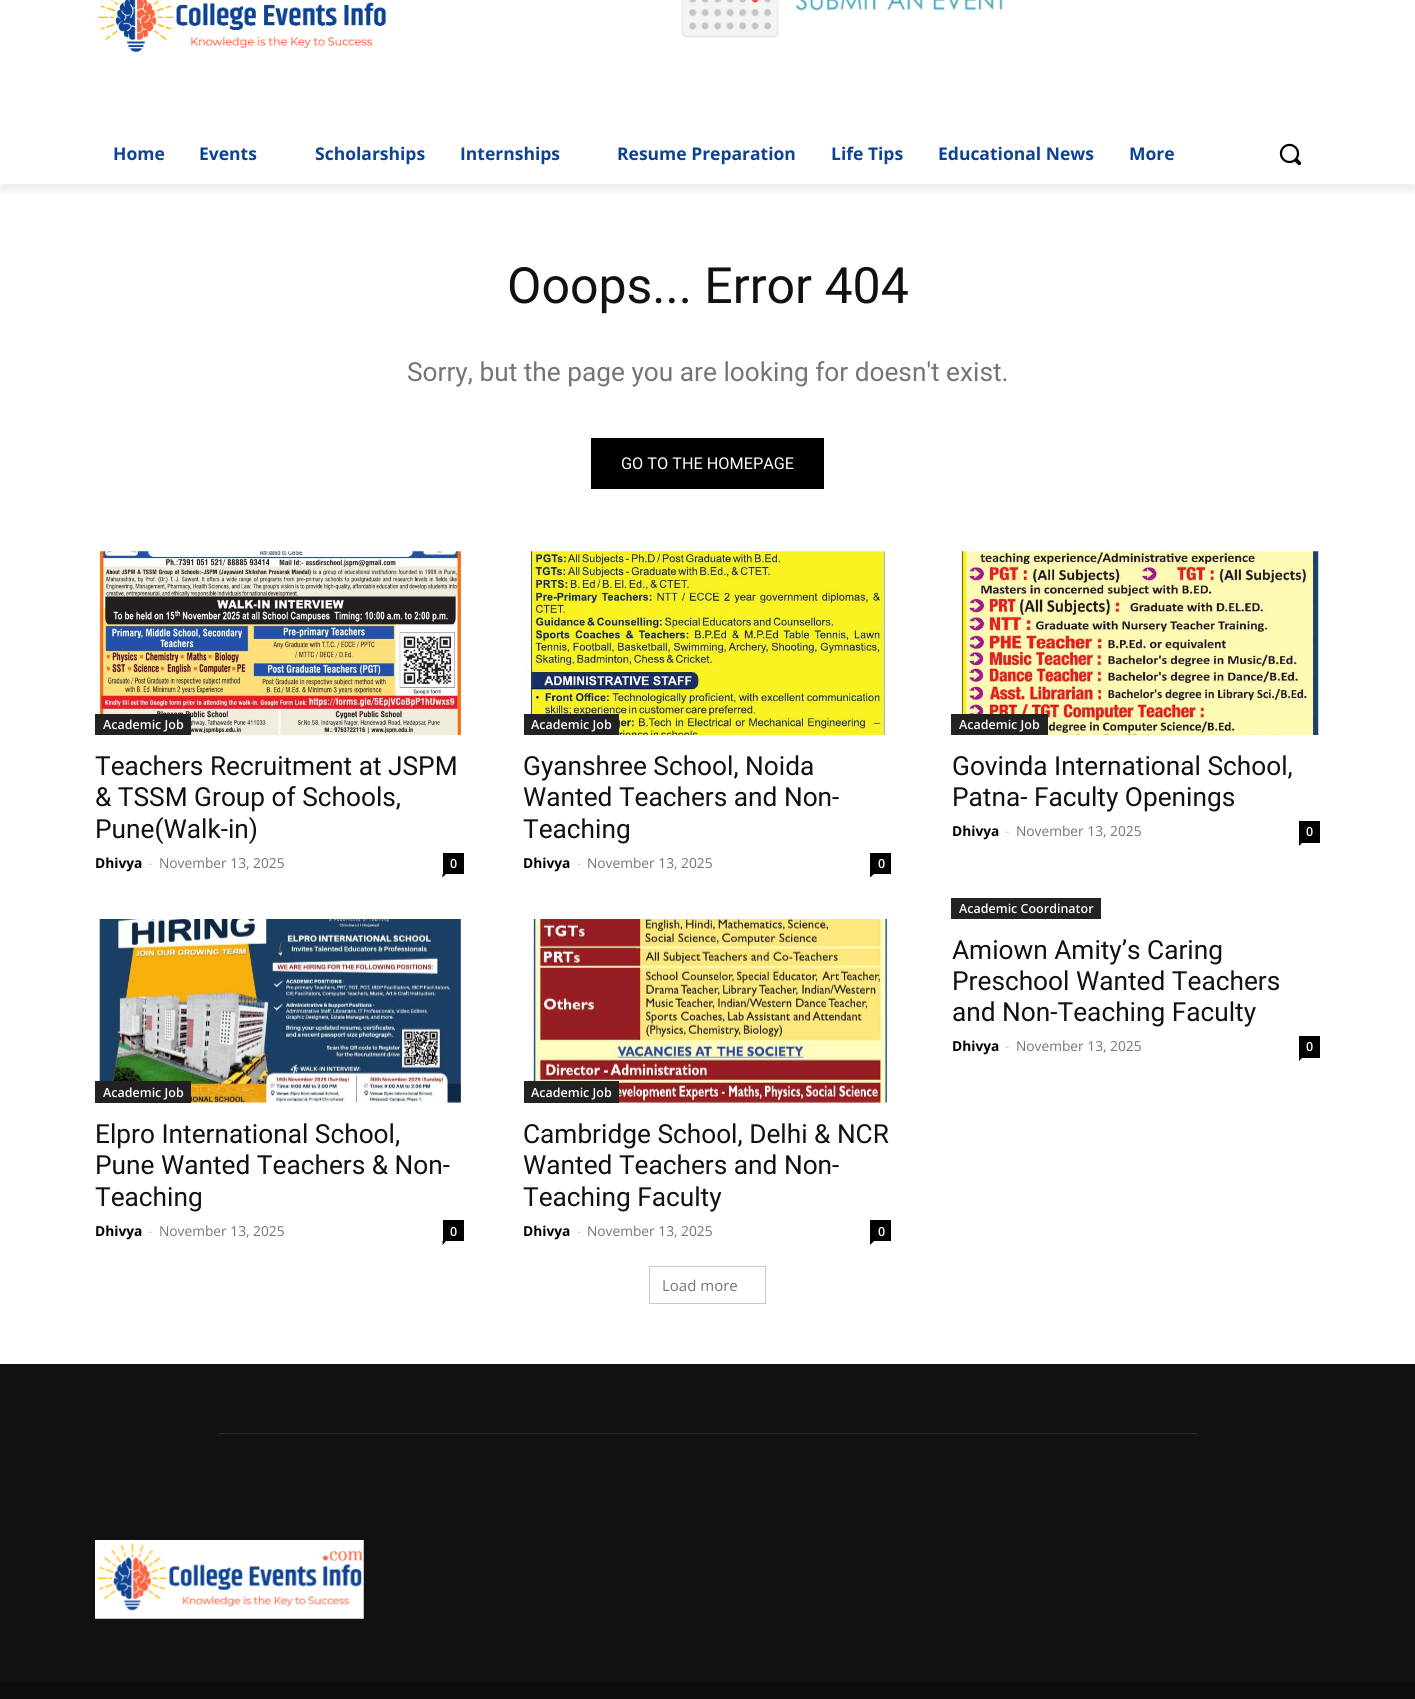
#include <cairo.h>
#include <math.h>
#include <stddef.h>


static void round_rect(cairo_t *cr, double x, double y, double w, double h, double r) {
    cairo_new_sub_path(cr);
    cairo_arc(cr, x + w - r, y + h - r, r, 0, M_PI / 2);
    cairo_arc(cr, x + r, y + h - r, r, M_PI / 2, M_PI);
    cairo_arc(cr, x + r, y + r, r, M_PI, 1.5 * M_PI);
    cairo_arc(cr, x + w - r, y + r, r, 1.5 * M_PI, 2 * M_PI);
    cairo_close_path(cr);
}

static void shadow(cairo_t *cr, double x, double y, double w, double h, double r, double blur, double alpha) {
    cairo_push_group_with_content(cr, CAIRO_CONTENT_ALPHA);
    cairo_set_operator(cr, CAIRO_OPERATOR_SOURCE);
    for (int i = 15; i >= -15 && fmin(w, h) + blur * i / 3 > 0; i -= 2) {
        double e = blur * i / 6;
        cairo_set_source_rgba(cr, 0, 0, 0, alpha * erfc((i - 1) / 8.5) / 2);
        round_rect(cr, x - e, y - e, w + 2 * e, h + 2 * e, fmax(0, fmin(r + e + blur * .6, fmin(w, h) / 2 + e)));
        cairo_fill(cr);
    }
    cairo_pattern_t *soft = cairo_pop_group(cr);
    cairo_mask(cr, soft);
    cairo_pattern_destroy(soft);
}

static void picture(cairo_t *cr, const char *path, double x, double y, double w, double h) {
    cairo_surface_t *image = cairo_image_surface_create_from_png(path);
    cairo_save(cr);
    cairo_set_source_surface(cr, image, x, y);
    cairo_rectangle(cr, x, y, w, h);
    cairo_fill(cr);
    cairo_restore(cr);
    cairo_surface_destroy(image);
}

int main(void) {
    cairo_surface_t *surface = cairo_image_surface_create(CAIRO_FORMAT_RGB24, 1415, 1699);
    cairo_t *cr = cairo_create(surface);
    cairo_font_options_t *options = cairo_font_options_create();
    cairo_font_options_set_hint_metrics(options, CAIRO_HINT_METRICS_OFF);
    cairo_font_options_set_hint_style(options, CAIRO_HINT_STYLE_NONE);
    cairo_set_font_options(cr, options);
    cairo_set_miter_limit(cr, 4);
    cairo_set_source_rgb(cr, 1, 1, 1);
    cairo_paint(cr);
    picture(cr, "img1.png", 98, 0, 289, 53);
    picture(cr, "img2.png", 681, 0, 322, 38);
    cairo_save(cr);
    cairo_rectangle(cr, 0, 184, 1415, 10);
    cairo_clip(cr);
    cairo_set_source_rgb(cr, 0, 0, 0);
    shadow(cr, 0, -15, 1415, 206, 0, 5, 0.08);
    cairo_restore(cr);
    cairo_select_font_face(cr, "Open Sans", CAIRO_FONT_SLANT_NORMAL, CAIRO_FONT_WEIGHT_BOLD);
    cairo_set_font_size(cr, 17.5);
    cairo_set_source_rgb(cr, 0.055, 0.263, 0.569);
    cairo_move_to(cr, 113, 160);
    cairo_show_text(cr, "Home");
    cairo_move_to(cr, 199, 160);
    cairo_show_text(cr, "Events");
    cairo_move_to(cr, 315, 160);
    cairo_show_text(cr, "Scholarships");
    cairo_move_to(cr, 460, 160);
    cairo_show_text(cr, "Internships");
    cairo_move_to(cr, 617, 160);
    cairo_show_text(cr, "Resume Preparation");
    cairo_move_to(cr, 831, 160);
    cairo_show_text(cr, "Life Tips");
    cairo_move_to(cr, 938, 160);
    cairo_show_text(cr, "Educational News");
    cairo_move_to(cr, 1129, 160);
    cairo_show_text(cr, "More");
    picture(cr, "img3.png", 1279, 143, 23, 23);
    cairo_select_font_face(cr, "Roboto", CAIRO_FONT_SLANT_NORMAL, CAIRO_FONT_WEIGHT_NORMAL);
    cairo_set_font_size(cr, 50);
    cairo_set_source_rgb(cr, 0.067, 0.067, 0.067);
    cairo_move_to(cr, 507, 303);
    cairo_show_text(cr, "Ooops... Error 404");
    cairo_set_font_size(cr, 26.25);
    cairo_set_source_rgb(cr, 0.459, 0.459, 0.459);
    cairo_move_to(cr, 407, 381);
    cairo_show_text(cr, "Sorry, but the page you are looking for doesn't exist.");
    cairo_set_source_rgb(cr, 0, 0, 0);
    cairo_rectangle(cr, 591, 438, 233, 51);
    cairo_fill(cr);
    cairo_set_font_size(cr, 16.25);
    cairo_set_source_rgb(cr, 1, 1, 1);
    cairo_move_to(cr, 621, 469);
    cairo_show_text(cr, "GO TO THE HOMEPAGE");
    picture(cr, "img4.png", 95, 551, 369, 184);
    cairo_set_source_rgb(cr, 0.133, 0.133, 0.133);
    cairo_rectangle(cr, 95, 714, 96, 21);
    cairo_fill(cr);
    cairo_select_font_face(cr, "Open Sans SemiBold", CAIRO_FONT_SLANT_NORMAL, CAIRO_FONT_WEIGHT_NORMAL);
    cairo_set_font_size(cr, 12.5);
    cairo_set_source_rgb(cr, 1, 1, 1);
    cairo_move_to(cr, 103, 729);
    cairo_show_text(cr, "Academic Job");
    cairo_select_font_face(cr, "Roboto", CAIRO_FONT_SLANT_NORMAL, CAIRO_FONT_WEIGHT_NORMAL);
    cairo_set_font_size(cr, 26.25);
    cairo_set_source_rgb(cr, 0.067, 0.067, 0.067);
    cairo_move_to(cr, 95, 775);
    cairo_show_text(cr, "Teachers Recruitment at JSPM");
    cairo_move_to(cr, 95, 806);
    cairo_show_text(cr, "& TSSM Group of Schools,");
    cairo_move_to(cr, 95, 838);
    cairo_show_text(cr, "Pune(Walk-in)");
    cairo_select_font_face(cr, "Open Sans", CAIRO_FONT_SLANT_NORMAL, CAIRO_FONT_WEIGHT_BOLD);
    cairo_set_font_size(cr, 13.75);
    cairo_set_source_rgb(cr, 0, 0, 0);
    cairo_move_to(cr, 95, 868);
    cairo_show_text(cr, "Dhivya");
    cairo_select_font_face(cr, "Open Sans", CAIRO_FONT_SLANT_NORMAL, CAIRO_FONT_WEIGHT_NORMAL);
    cairo_set_source_rgb(cr, 0.8, 0.8, 0.8);
    cairo_move_to(cr, 148, 868);
    cairo_show_text(cr, "-");
    cairo_set_source_rgb(cr, 0.459, 0.459, 0.459);
    cairo_move_to(cr, 159, 868);
    cairo_show_text(cr, "November 13, 2025");
    cairo_set_source_rgb(cr, 0, 0, 0);
    cairo_rectangle(cr, 443, 853, 21, 21);
    cairo_fill(cr);
    cairo_select_font_face(cr, "Open Sans SemiBold", CAIRO_FONT_SLANT_NORMAL, CAIRO_FONT_WEIGHT_NORMAL);
    cairo_set_font_size(cr, 12.5);
    cairo_set_source_rgb(cr, 1, 1, 1);
    cairo_move_to(cr, 450, 868);
    cairo_show_text(cr, "0");
    cairo_set_source_rgb(cr, 0, 0, 0);
    cairo_new_path(cr);
    cairo_move_to(cr, 442.5, 874);
    cairo_line_to(cr, 446, 874);
    cairo_line_to(cr, 442.5, 877.5);
    cairo_close_path(cr);
    cairo_fill(cr);
    picture(cr, "img5.png", 524, 551, 364, 184);
    cairo_set_source_rgb(cr, 0.133, 0.133, 0.133);
    cairo_rectangle(cr, 524, 714, 95, 21);
    cairo_fill(cr);
    cairo_set_source_rgb(cr, 1, 1, 1);
    cairo_move_to(cr, 531, 729);
    cairo_show_text(cr, "Academic Job");
    cairo_select_font_face(cr, "Roboto", CAIRO_FONT_SLANT_NORMAL, CAIRO_FONT_WEIGHT_NORMAL);
    cairo_set_font_size(cr, 26.25);
    cairo_set_source_rgb(cr, 0.067, 0.067, 0.067);
    cairo_move_to(cr, 523, 775);
    cairo_show_text(cr, "Gyanshree School, Noida");
    cairo_move_to(cr, 523, 806);
    cairo_show_text(cr, "Wanted Teachers and Non-");
    cairo_move_to(cr, 523, 838);
    cairo_show_text(cr, "Teaching");
    cairo_select_font_face(cr, "Open Sans", CAIRO_FONT_SLANT_NORMAL, CAIRO_FONT_WEIGHT_BOLD);
    cairo_set_font_size(cr, 13.75);
    cairo_set_source_rgb(cr, 0, 0, 0);
    cairo_move_to(cr, 523, 868);
    cairo_show_text(cr, "Dhivya");
    cairo_select_font_face(cr, "Open Sans", CAIRO_FONT_SLANT_NORMAL, CAIRO_FONT_WEIGHT_NORMAL);
    cairo_set_source_rgb(cr, 0.8, 0.8, 0.8);
    cairo_move_to(cr, 577, 868);
    cairo_show_text(cr, "-");
    cairo_set_source_rgb(cr, 0.459, 0.459, 0.459);
    cairo_move_to(cr, 587, 868);
    cairo_show_text(cr, "November 13, 2025");
    cairo_set_source_rgb(cr, 0, 0, 0);
    cairo_rectangle(cr, 870, 853, 21, 21);
    cairo_fill(cr);
    cairo_select_font_face(cr, "Open Sans SemiBold", CAIRO_FONT_SLANT_NORMAL, CAIRO_FONT_WEIGHT_NORMAL);
    cairo_set_font_size(cr, 12.5);
    cairo_set_source_rgb(cr, 1, 1, 1);
    cairo_move_to(cr, 878, 868);
    cairo_show_text(cr, "0");
    cairo_set_source_rgb(cr, 0, 0, 0);
    cairo_new_path(cr);
    cairo_move_to(cr, 870, 874);
    cairo_line_to(cr, 874, 874);
    cairo_line_to(cr, 870, 877.5);
    cairo_close_path(cr);
    cairo_fill(cr);
    picture(cr, "img6.png", 961, 551, 359, 184);
    cairo_set_source_rgb(cr, 0.133, 0.133, 0.133);
    cairo_rectangle(cr, 951, 714, 97, 21);
    cairo_fill(cr);
    cairo_set_source_rgb(cr, 1, 1, 1);
    cairo_move_to(cr, 959, 729);
    cairo_show_text(cr, "Academic Job");
    cairo_select_font_face(cr, "Roboto", CAIRO_FONT_SLANT_NORMAL, CAIRO_FONT_WEIGHT_NORMAL);
    cairo_set_font_size(cr, 26.25);
    cairo_set_source_rgb(cr, 0.067, 0.067, 0.067);
    cairo_move_to(cr, 952, 775);
    cairo_show_text(cr, "Govinda International School,");
    cairo_move_to(cr, 952, 806);
    cairo_show_text(cr, "Patna- Faculty Openings");
    cairo_select_font_face(cr, "Open Sans", CAIRO_FONT_SLANT_NORMAL, CAIRO_FONT_WEIGHT_BOLD);
    cairo_set_font_size(cr, 13.75);
    cairo_set_source_rgb(cr, 0, 0, 0);
    cairo_move_to(cr, 952, 836);
    cairo_show_text(cr, "Dhivya");
    cairo_select_font_face(cr, "Open Sans", CAIRO_FONT_SLANT_NORMAL, CAIRO_FONT_WEIGHT_NORMAL);
    cairo_set_source_rgb(cr, 0.8, 0.8, 0.8);
    cairo_move_to(cr, 1005, 836);
    cairo_show_text(cr, "-");
    cairo_set_source_rgb(cr, 0.459, 0.459, 0.459);
    cairo_move_to(cr, 1016, 836);
    cairo_show_text(cr, "November 13, 2025");
    cairo_set_source_rgb(cr, 0, 0, 0);
    cairo_rectangle(cr, 1299, 821, 21, 22);
    cairo_fill(cr);
    cairo_select_font_face(cr, "Open Sans SemiBold", CAIRO_FONT_SLANT_NORMAL, CAIRO_FONT_WEIGHT_NORMAL);
    cairo_set_font_size(cr, 12.5);
    cairo_set_source_rgb(cr, 1, 1, 1);
    cairo_move_to(cr, 1306, 836);
    cairo_show_text(cr, "0");
    cairo_set_source_rgb(cr, 0, 0, 0);
    cairo_new_path(cr);
    cairo_move_to(cr, 1299, 842.5);
    cairo_line_to(cr, 1302.5, 842.5);
    cairo_line_to(cr, 1299, 846);
    cairo_close_path(cr);
    cairo_fill(cr);
    cairo_set_source_rgb(cr, 0.133, 0.133, 0.133);
    cairo_rectangle(cr, 951, 898, 150, 21);
    cairo_fill(cr);
    cairo_set_source_rgb(cr, 1, 1, 1);
    cairo_move_to(cr, 959, 913);
    cairo_show_text(cr, "Academic Coordinator");
    cairo_select_font_face(cr, "Roboto", CAIRO_FONT_SLANT_NORMAL, CAIRO_FONT_WEIGHT_NORMAL);
    cairo_set_font_size(cr, 26.25);
    cairo_set_source_rgb(cr, 0.067, 0.067, 0.067);
    cairo_move_to(cr, 952, 959);
    cairo_show_text(cr, "Amiown Amity’s Caring");
    cairo_move_to(cr, 952, 990);
    cairo_show_text(cr, "Preschool Wanted Teachers");
    cairo_move_to(cr, 952, 1021);
    cairo_show_text(cr, "and Non-Teaching Faculty");
    cairo_select_font_face(cr, "Open Sans", CAIRO_FONT_SLANT_NORMAL, CAIRO_FONT_WEIGHT_BOLD);
    cairo_set_font_size(cr, 13.75);
    cairo_set_source_rgb(cr, 0, 0, 0);
    cairo_move_to(cr, 952, 1051);
    cairo_show_text(cr, "Dhivya");
    cairo_select_font_face(cr, "Open Sans", CAIRO_FONT_SLANT_NORMAL, CAIRO_FONT_WEIGHT_NORMAL);
    cairo_set_source_rgb(cr, 0.8, 0.8, 0.8);
    cairo_move_to(cr, 1005, 1051);
    cairo_show_text(cr, "-");
    cairo_set_source_rgb(cr, 0.459, 0.459, 0.459);
    cairo_move_to(cr, 1016, 1051);
    cairo_show_text(cr, "November 13, 2025");
    cairo_set_source_rgb(cr, 0, 0, 0);
    cairo_rectangle(cr, 1299, 1036, 21, 22);
    cairo_fill(cr);
    cairo_select_font_face(cr, "Open Sans SemiBold", CAIRO_FONT_SLANT_NORMAL, CAIRO_FONT_WEIGHT_NORMAL);
    cairo_set_font_size(cr, 12.5);
    cairo_set_source_rgb(cr, 1, 1, 1);
    cairo_move_to(cr, 1306, 1051);
    cairo_show_text(cr, "0");
    cairo_set_source_rgb(cr, 0, 0, 0);
    cairo_new_path(cr);
    cairo_move_to(cr, 1299, 1057.5);
    cairo_line_to(cr, 1302.5, 1057.5);
    cairo_line_to(cr, 1299, 1061);
    cairo_close_path(cr);
    cairo_fill(cr);
    picture(cr, "img7.png", 95, 919, 369, 184);
    cairo_set_source_rgb(cr, 0.133, 0.133, 0.133);
    cairo_rectangle(cr, 95, 1081, 96, 22);
    cairo_fill(cr);
    cairo_set_source_rgb(cr, 1, 1, 1);
    cairo_move_to(cr, 103, 1097);
    cairo_show_text(cr, "Academic Job");
    cairo_select_font_face(cr, "Roboto", CAIRO_FONT_SLANT_NORMAL, CAIRO_FONT_WEIGHT_NORMAL);
    cairo_set_font_size(cr, 26.25);
    cairo_set_source_rgb(cr, 0.067, 0.067, 0.067);
    cairo_move_to(cr, 95, 1143);
    cairo_show_text(cr, "Elpro International School,");
    cairo_move_to(cr, 95, 1174);
    cairo_show_text(cr, "Pune Wanted Teachers & Non-");
    cairo_move_to(cr, 95, 1206);
    cairo_show_text(cr, "Teaching");
    cairo_select_font_face(cr, "Open Sans", CAIRO_FONT_SLANT_NORMAL, CAIRO_FONT_WEIGHT_BOLD);
    cairo_set_font_size(cr, 13.75);
    cairo_set_source_rgb(cr, 0, 0, 0);
    cairo_move_to(cr, 95, 1236);
    cairo_show_text(cr, "Dhivya");
    cairo_select_font_face(cr, "Open Sans", CAIRO_FONT_SLANT_NORMAL, CAIRO_FONT_WEIGHT_NORMAL);
    cairo_set_source_rgb(cr, 0.8, 0.8, 0.8);
    cairo_move_to(cr, 148, 1236);
    cairo_show_text(cr, "-");
    cairo_set_source_rgb(cr, 0.459, 0.459, 0.459);
    cairo_move_to(cr, 159, 1236);
    cairo_show_text(cr, "November 13, 2025");
    cairo_set_source_rgb(cr, 0, 0, 0);
    cairo_rectangle(cr, 443, 1220, 21, 21);
    cairo_fill(cr);
    cairo_select_font_face(cr, "Open Sans SemiBold", CAIRO_FONT_SLANT_NORMAL, CAIRO_FONT_WEIGHT_NORMAL);
    cairo_set_font_size(cr, 12.5);
    cairo_set_source_rgb(cr, 1, 1, 1);
    cairo_move_to(cr, 450, 1236);
    cairo_show_text(cr, "0");
    cairo_set_source_rgb(cr, 0, 0, 0);
    cairo_new_path(cr);
    cairo_move_to(cr, 442.5, 1241);
    cairo_line_to(cr, 446, 1241);
    cairo_line_to(cr, 442.5, 1245);
    cairo_close_path(cr);
    cairo_fill(cr);
    picture(cr, "img8.png", 533, 919, 355, 184);
    cairo_set_source_rgb(cr, 0.133, 0.133, 0.133);
    cairo_rectangle(cr, 524, 1081, 95, 22);
    cairo_fill(cr);
    cairo_set_source_rgb(cr, 1, 1, 1);
    cairo_move_to(cr, 531, 1097);
    cairo_show_text(cr, "Academic Job");
    cairo_select_font_face(cr, "Roboto", CAIRO_FONT_SLANT_NORMAL, CAIRO_FONT_WEIGHT_NORMAL);
    cairo_set_font_size(cr, 26.25);
    cairo_set_source_rgb(cr, 0.067, 0.067, 0.067);
    cairo_move_to(cr, 523, 1143);
    cairo_show_text(cr, "Cambridge School, Delhi & NCR");
    cairo_move_to(cr, 523, 1174);
    cairo_show_text(cr, "Wanted Teachers and Non-");
    cairo_move_to(cr, 523, 1206);
    cairo_show_text(cr, "Teaching Faculty");
    cairo_select_font_face(cr, "Open Sans", CAIRO_FONT_SLANT_NORMAL, CAIRO_FONT_WEIGHT_BOLD);
    cairo_set_font_size(cr, 13.75);
    cairo_set_source_rgb(cr, 0, 0, 0);
    cairo_move_to(cr, 523, 1236);
    cairo_show_text(cr, "Dhivya");
    cairo_select_font_face(cr, "Open Sans", CAIRO_FONT_SLANT_NORMAL, CAIRO_FONT_WEIGHT_NORMAL);
    cairo_set_source_rgb(cr, 0.8, 0.8, 0.8);
    cairo_move_to(cr, 577, 1236);
    cairo_show_text(cr, "-");
    cairo_set_source_rgb(cr, 0.459, 0.459, 0.459);
    cairo_move_to(cr, 587, 1236);
    cairo_show_text(cr, "November 13, 2025");
    cairo_set_source_rgb(cr, 0, 0, 0);
    cairo_rectangle(cr, 870, 1220, 21, 21);
    cairo_fill(cr);
    cairo_select_font_face(cr, "Open Sans SemiBold", CAIRO_FONT_SLANT_NORMAL, CAIRO_FONT_WEIGHT_NORMAL);
    cairo_set_font_size(cr, 12.5);
    cairo_set_source_rgb(cr, 1, 1, 1);
    cairo_move_to(cr, 878, 1236);
    cairo_show_text(cr, "0");
    cairo_set_source_rgb(cr, 0, 0, 0);
    cairo_new_path(cr);
    cairo_move_to(cr, 870, 1241);
    cairo_line_to(cr, 874, 1241);
    cairo_line_to(cr, 870, 1245);
    cairo_close_path(cr);
    cairo_fill(cr);
    cairo_rectangle(cr, 649.5, 1266.5, 116, 37);
    cairo_set_source_rgb(cr, 0.788, 0.788, 0.788);
    cairo_set_line_width(cr, 1);
    cairo_stroke(cr);
    cairo_select_font_face(cr, "Open Sans", CAIRO_FONT_SLANT_NORMAL, CAIRO_FONT_WEIGHT_NORMAL);
    cairo_set_font_size(cr, 15);
    cairo_set_source_rgb(cr, 0.459, 0.459, 0.459);
    cairo_move_to(cr, 662, 1291);
    cairo_show_text(cr, "Load more");
    cairo_set_source_rgb(cr, 0.067, 0.067, 0.067);
    cairo_rectangle(cr, 0, 1364, 1415, 317);
    cairo_fill(cr);
    cairo_set_source_rgb(cr, 0.161, 0.161, 0.161);
    cairo_rectangle(cr, 218, 1433, 980, 1);
    cairo_fill(cr);
    picture(cr, "img9.png", 95, 1540, 269, 79);
    cairo_set_source_rgb(cr, 0.051, 0.051, 0.051);
    cairo_rectangle(cr, 0, 1681, 1415, 18);
    cairo_fill(cr);
    cairo_surface_write_to_png(surface, "page.png");
    cairo_font_options_destroy(options);
    cairo_destroy(cr);
    cairo_surface_destroy(surface);
    return 0;
}
